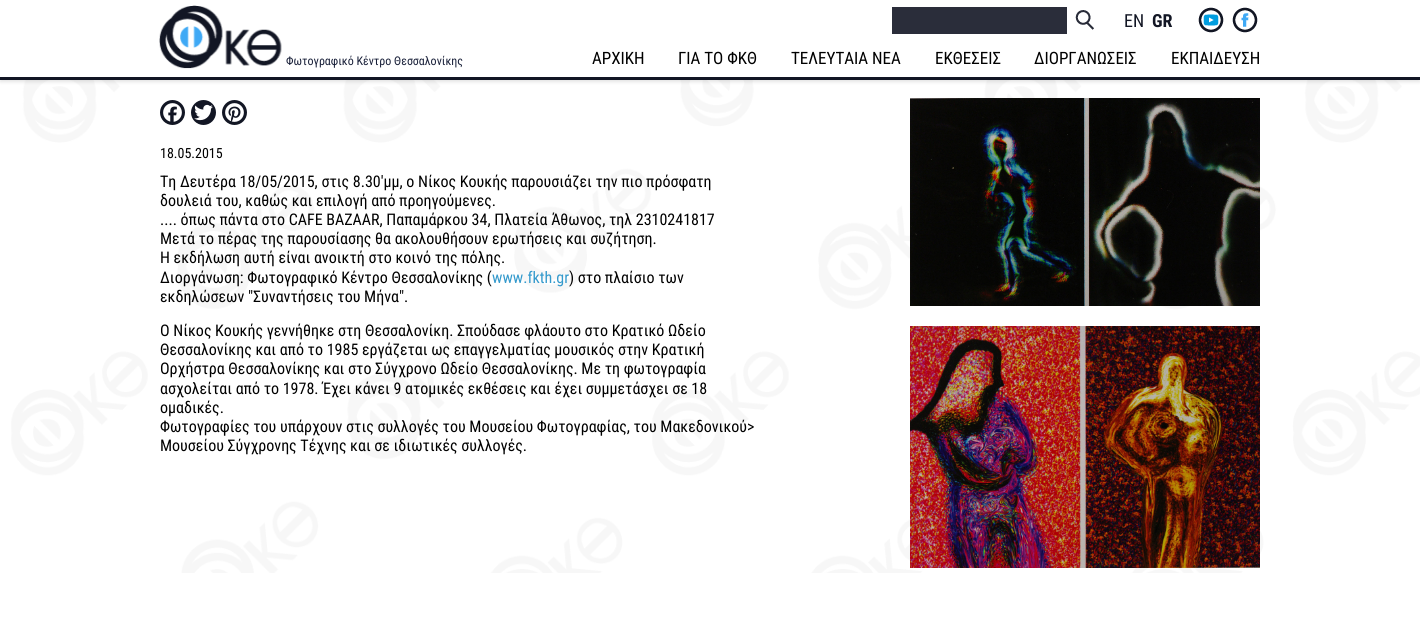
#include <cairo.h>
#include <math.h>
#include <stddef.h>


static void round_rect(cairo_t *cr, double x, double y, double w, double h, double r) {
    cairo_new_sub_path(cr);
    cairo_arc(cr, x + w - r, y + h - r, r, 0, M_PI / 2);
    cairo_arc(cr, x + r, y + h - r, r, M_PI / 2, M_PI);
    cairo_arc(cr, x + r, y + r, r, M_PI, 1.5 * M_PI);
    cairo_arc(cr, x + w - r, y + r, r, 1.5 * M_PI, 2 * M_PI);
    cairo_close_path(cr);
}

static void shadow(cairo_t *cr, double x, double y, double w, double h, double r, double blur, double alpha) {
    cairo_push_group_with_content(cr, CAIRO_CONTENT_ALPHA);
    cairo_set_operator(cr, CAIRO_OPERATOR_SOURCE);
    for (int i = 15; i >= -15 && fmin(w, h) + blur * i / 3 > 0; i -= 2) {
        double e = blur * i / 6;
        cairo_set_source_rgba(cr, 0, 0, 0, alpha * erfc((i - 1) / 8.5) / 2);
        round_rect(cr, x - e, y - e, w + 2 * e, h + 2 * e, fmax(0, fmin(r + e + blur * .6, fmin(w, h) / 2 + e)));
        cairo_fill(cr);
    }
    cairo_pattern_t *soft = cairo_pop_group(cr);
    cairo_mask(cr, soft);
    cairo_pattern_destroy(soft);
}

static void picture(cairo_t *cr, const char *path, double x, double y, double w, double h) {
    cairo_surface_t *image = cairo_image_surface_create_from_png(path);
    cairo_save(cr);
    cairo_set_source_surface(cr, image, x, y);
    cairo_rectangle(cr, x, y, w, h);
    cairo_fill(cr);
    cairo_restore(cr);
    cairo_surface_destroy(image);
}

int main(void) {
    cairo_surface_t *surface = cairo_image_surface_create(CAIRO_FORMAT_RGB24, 1420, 619);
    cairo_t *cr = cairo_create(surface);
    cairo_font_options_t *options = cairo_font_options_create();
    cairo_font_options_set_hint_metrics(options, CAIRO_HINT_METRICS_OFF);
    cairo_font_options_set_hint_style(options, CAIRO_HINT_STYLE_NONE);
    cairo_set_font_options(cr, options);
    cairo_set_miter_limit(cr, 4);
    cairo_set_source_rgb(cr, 1, 1, 1);
    cairo_paint(cr);
    picture(cr, "img5.png", 11, 80, 1409, 493);
    cairo_set_source_rgb(cr, 0, 0, 0);
    shadow(cr, 0, 2, 1420, 80, 0, 1.5, 0.1);
    cairo_set_source_rgb(cr, 1, 1, 1);
    cairo_rectangle(cr, 0, 0, 1420, 77);
    cairo_fill(cr);
    cairo_set_source_rgb(cr, 0.071, 0.086, 0.141);
    cairo_rectangle(cr, 0, 77, 1420, 3);
    cairo_fill(cr);
    cairo_set_source_rgb(cr, 0.165, 0.176, 0.227);
    cairo_rectangle(cr, 892, 7, 175, 27);
    cairo_fill(cr);
    picture(cr, "img1.png", 1075, 10, 19, 20);
    cairo_select_font_face(cr, "Roboto Condensed", CAIRO_FONT_SLANT_NORMAL, CAIRO_FONT_WEIGHT_NORMAL);
    cairo_set_font_size(cr, 18);
    cairo_set_source_rgb(cr, 0.071, 0.086, 0.141);
    cairo_move_to(cr, 1124, 27);
    cairo_show_text(cr, "EN");
    cairo_select_font_face(cr, "Roboto Condensed", CAIRO_FONT_SLANT_NORMAL, CAIRO_FONT_WEIGHT_BOLD);
    cairo_move_to(cr, 1152, 27);
    cairo_show_text(cr, "GR");
    picture(cr, "img2.png", 1198, 7, 26, 26);
    picture(cr, "img3.png", 1232, 7, 26, 26);
    picture(cr, "img4.png", 159, 5, 123, 64);
    cairo_select_font_face(cr, "Roboto Condensed", CAIRO_FONT_SLANT_NORMAL, CAIRO_FONT_WEIGHT_NORMAL);
    cairo_set_font_size(cr, 12);
    cairo_set_source_rgb(cr, 0.094, 0.122, 0.22);
    cairo_move_to(cr, 286, 65);
    cairo_show_text(cr, "Φωτογραφικό Κέντρο Θεσσαλονίκης");
    cairo_set_font_size(cr, 17);
    cairo_set_source_rgb(cr, 0, 0, 0);
    cairo_move_to(cr, 592, 64);
    cairo_show_text(cr, "ΑΡΧΙΚΗ");
    cairo_move_to(cr, 678, 64);
    cairo_show_text(cr, "ΓΙΑ ΤΟ ΦΚΘ");
    cairo_move_to(cr, 791, 64);
    cairo_show_text(cr, "ΤΕΛΕΥΤΑΙΑ ΝΕΑ");
    cairo_move_to(cr, 935, 64);
    cairo_show_text(cr, "ΕΚΘΕΣΕΙΣ");
    cairo_move_to(cr, 1034, 64);
    cairo_show_text(cr, "ΔΙΟΡΓΑΝΩΣΕΙΣ");
    cairo_move_to(cr, 1171, 64);
    cairo_show_text(cr, "ΕΚΠΑΙΔΕΥΣΗ");
    cairo_set_source_rgb(cr, 0.071, 0.086, 0.141);
    cairo_new_path(cr);
    cairo_arc(cr, 172.5, 112.5, 12.5, 0, 2 * M_PI);
    cairo_fill(cr);
    picture(cr, "img6.png", 163, 103, 19, 19);
    cairo_arc(cr, 203.5, 112.5, 12.5, 0, 2 * M_PI);
    cairo_fill(cr);
    picture(cr, "img7.png", 194, 104, 19, 17);
    cairo_arc(cr, 234.5, 112.5, 12.5, 0, 2 * M_PI);
    cairo_fill(cr);
    picture(cr, "img8.png", 225, 103, 19, 19);
    cairo_set_font_size(cr, 14);
    cairo_set_source_rgb(cr, 0, 0, 0);
    cairo_move_to(cr, 160, 158);
    cairo_show_text(cr, "18.05.2015");
    cairo_set_font_size(cr, 16);
    cairo_move_to(cr, 160, 187);
    cairo_show_text(cr, "Τη Δευτέρα 18/05/2015, στις 8.30'μμ, ο Νίκος Κουκής παρουσιάζει την πιο πρόσφατη");
    cairo_move_to(cr, 160, 206);
    cairo_show_text(cr, "δουλειά του, καθώς και επιλογή από προηγούμενες.");
    cairo_move_to(cr, 160, 225);
    cairo_show_text(cr, ".... όπως πάντα στο CAFE BAZAAR, Παπαμάρκου 34, Πλατεία Άθωνος, τηλ 2310241817");
    cairo_move_to(cr, 160, 244);
    cairo_show_text(cr, "Μετά το πέρας της παρουσίασης θα ακολουθήσουν ερωτήσεις και συζήτηση.");
    cairo_move_to(cr, 160, 263);
    cairo_show_text(cr, "Η εκδήλωση αυτή είναι ανοικτή στο κοινό της πόλης.");
    cairo_move_to(cr, 160, 283);
    cairo_show_text(cr, "Διοργάνωση: Φωτογραφικό Κέντρο Θεσσαλονίκης (");
    cairo_set_source_rgb(cr, 0.2, 0.6, 0.8);
    cairo_move_to(cr, 492, 283);
    cairo_show_text(cr, "www.fkth.gr");
    cairo_set_source_rgb(cr, 0, 0, 0);
    cairo_move_to(cr, 569, 283);
    cairo_show_text(cr, ") στο πλαίσιο των");
    cairo_move_to(cr, 160, 302);
    cairo_show_text(cr, "εκδηλώσεων \"Συναντήσεις του Μήνα\".");
    cairo_move_to(cr, 160, 336);
    cairo_show_text(cr, "Ο Νίκος Κουκής γεννήθηκε στη Θεσσαλονίκη. Σπούδασε φλάουτο στο Κρατικό Ωδείο");
    cairo_move_to(cr, 160, 355);
    cairo_show_text(cr, "Θεσσαλονίκης και από το 1985 εργάζεται ως επαγγελματίας μουσικός στην Κρατική");
    cairo_move_to(cr, 160, 374);
    cairo_show_text(cr, "Ορχήστρα Θεσσαλονίκης και στο Σύγχρονο Ωδείο Θεσσαλονίκης. Με τη φωτογραφία");
    cairo_move_to(cr, 160, 394);
    cairo_show_text(cr, "ασχολείται από το 1978. Έχει κάνει 9 ατομικές εκθέσεις και έχει συμμετάσχει σε 18");
    cairo_move_to(cr, 160, 413);
    cairo_show_text(cr, "ομαδικές.");
    cairo_move_to(cr, 160, 432);
    cairo_show_text(cr, "Φωτογραφίες του υπάρχουν στις συλλογές του Μουσείου Φωτογραφίας, του Μακεδονικού>");
    cairo_move_to(cr, 160, 451);
    cairo_show_text(cr, "Μουσείου Σύγχρονης Τέχνης και σε ιδιωτικές συλλογές.");
    picture(cr, "img9.png", 910, 98, 350, 208);
    picture(cr, "img10.png", 910, 326, 350, 242);
    cairo_surface_write_to_png(surface, "page.png");
    cairo_font_options_destroy(options);
    cairo_destroy(cr);
    cairo_surface_destroy(surface);
    return 0;
}
